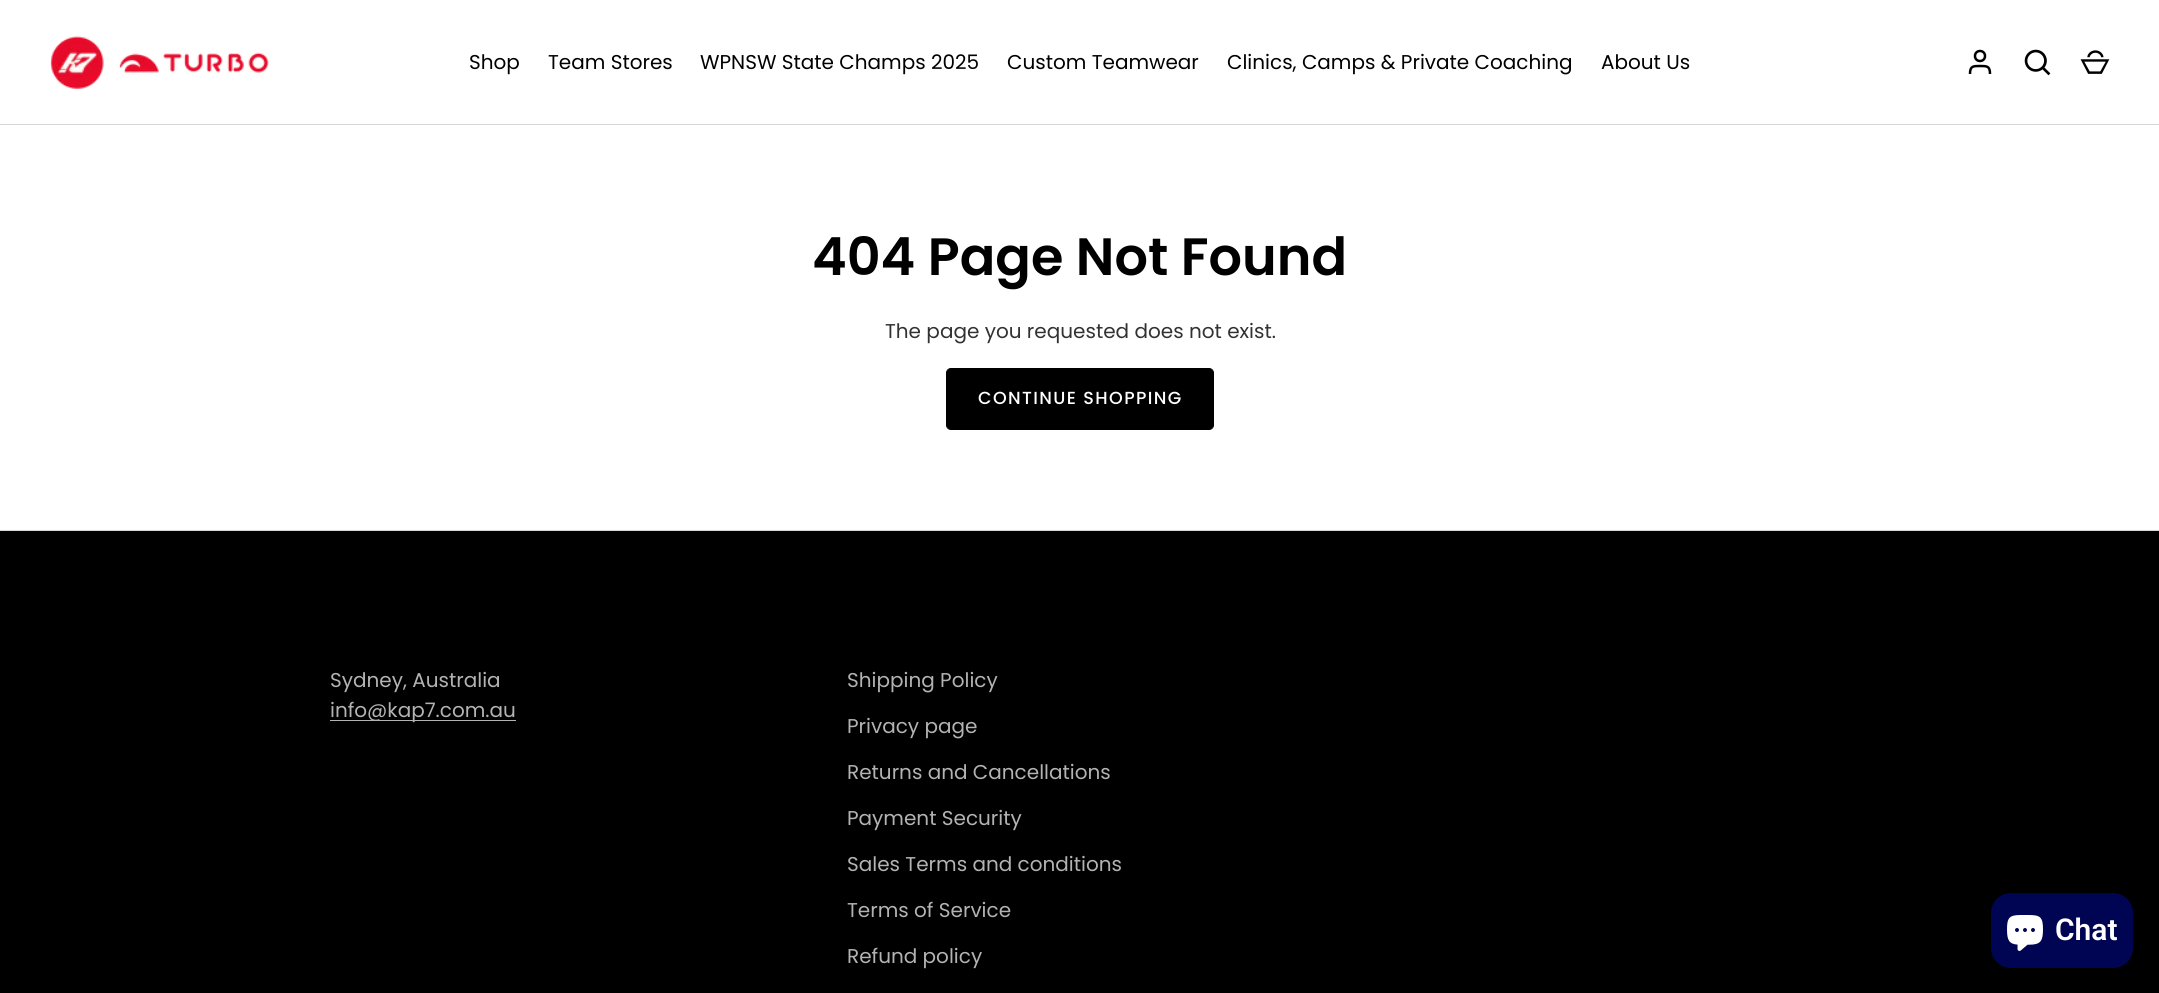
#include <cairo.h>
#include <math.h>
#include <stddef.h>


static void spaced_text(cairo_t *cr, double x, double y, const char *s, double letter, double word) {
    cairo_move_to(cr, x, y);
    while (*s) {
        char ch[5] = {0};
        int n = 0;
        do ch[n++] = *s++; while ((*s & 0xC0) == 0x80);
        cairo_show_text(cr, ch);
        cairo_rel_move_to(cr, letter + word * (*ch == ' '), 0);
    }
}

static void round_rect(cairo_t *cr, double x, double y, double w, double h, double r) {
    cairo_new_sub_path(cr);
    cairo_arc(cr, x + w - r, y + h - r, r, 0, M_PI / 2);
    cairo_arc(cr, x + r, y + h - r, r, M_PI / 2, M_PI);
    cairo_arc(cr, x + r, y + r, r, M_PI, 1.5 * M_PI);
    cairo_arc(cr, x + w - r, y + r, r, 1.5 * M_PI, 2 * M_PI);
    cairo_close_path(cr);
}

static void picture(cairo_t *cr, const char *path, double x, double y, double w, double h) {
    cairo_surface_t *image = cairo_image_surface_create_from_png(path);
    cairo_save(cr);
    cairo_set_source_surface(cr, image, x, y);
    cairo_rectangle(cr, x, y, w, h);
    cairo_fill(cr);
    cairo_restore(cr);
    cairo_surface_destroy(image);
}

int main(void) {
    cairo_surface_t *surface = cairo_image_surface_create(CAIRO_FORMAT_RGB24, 2159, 993);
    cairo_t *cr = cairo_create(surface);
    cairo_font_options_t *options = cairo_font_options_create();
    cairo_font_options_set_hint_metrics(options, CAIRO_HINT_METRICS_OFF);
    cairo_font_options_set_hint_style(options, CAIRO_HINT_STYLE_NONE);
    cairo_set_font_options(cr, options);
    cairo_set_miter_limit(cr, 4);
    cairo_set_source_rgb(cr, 1, 1, 1);
    cairo_paint(cr);
    picture(cr, "img1.png", 50, 36, 219, 53);
    cairo_select_font_face(cr, "Poppins", CAIRO_FONT_SLANT_NORMAL, CAIRO_FONT_WEIGHT_NORMAL);
    cairo_set_font_size(cr, 20);
    cairo_set_source_rgb(cr, 0, 0, 0);
    cairo_move_to(cr, 469, 69);
    cairo_show_text(cr, "Shop");
    cairo_move_to(cr, 548, 69);
    cairo_show_text(cr, "Team Stores");
    cairo_move_to(cr, 700, 69);
    cairo_show_text(cr, "WPNSW State Champs 2025");
    cairo_move_to(cr, 1007, 69);
    cairo_show_text(cr, "Custom Teamwear");
    cairo_move_to(cr, 1227, 69);
    cairo_show_text(cr, "Clinics, Camps & Private Coaching");
    cairo_move_to(cr, 1601, 69);
    cairo_show_text(cr, "About Us");
    cairo_new_path(cr);
    cairo_arc(cr, 1980, 56, 5, 0, 2 * M_PI);
    cairo_set_line_width(cr, 2.5);
    cairo_stroke(cr);
    cairo_new_path(cr);
    cairo_move_to(cr, 1990, 74);
    cairo_curve_to(cr, 1990, 66, 1987, 66, 1980, 66);
    cairo_curve_to(cr, 1973, 66, 1970, 66, 1970, 74);
    cairo_stroke(cr);
    picture(cr, "img2.png", 2024, 49, 27, 27);
    picture(cr, "img3.png", 2080, 50, 30, 24);
    cairo_set_source_rgb(cr, 0.839, 0.839, 0.839);
    cairo_rectangle(cr, 0, 124, 2159, 1);
    cairo_fill(cr);
    cairo_select_font_face(cr, "Poppins SemiBold", CAIRO_FONT_SLANT_NORMAL, CAIRO_FONT_WEIGHT_NORMAL);
    cairo_set_font_size(cr, 52.5);
    cairo_set_source_rgb(cr, 0, 0, 0);
    cairo_move_to(cr, 812, 275);
    cairo_show_text(cr, "404 Page Not Found");
    cairo_select_font_face(cr, "Poppins", CAIRO_FONT_SLANT_NORMAL, CAIRO_FONT_WEIGHT_NORMAL);
    cairo_set_font_size(cr, 20);
    cairo_set_source_rgb(cr, 0.196, 0.196, 0.196);
    cairo_move_to(cr, 885, 338);
    cairo_show_text(cr, "The page you requested does not exist.");
    cairo_set_source_rgb(cr, 0, 0, 0);
    round_rect(cr, 946.5, 368.5, 267, 61, 4.5);
    cairo_fill_preserve(cr);
    cairo_set_line_width(cr, 1);
    cairo_stroke(cr);
    cairo_select_font_face(cr, "Poppins Medium", CAIRO_FONT_SLANT_NORMAL, CAIRO_FONT_WEIGHT_NORMAL);
    cairo_set_font_size(cr, 17.5);
    cairo_set_source_rgb(cr, 1, 1, 1);
    spaced_text(cr, 978, 404, "CONTINUE SHOPPING", 1.4, 0);
    cairo_set_source_rgb(cr, 0, 0, 0);
    cairo_rectangle(cr, 0, 531, 2159, 462);
    cairo_fill(cr);
    cairo_set_source_rgb(cr, 0.839, 0.839, 0.839);
    cairo_rectangle(cr, 0, 530, 2159, 1);
    cairo_fill(cr);
    cairo_select_font_face(cr, "Poppins", CAIRO_FONT_SLANT_NORMAL, CAIRO_FONT_WEIGHT_NORMAL);
    cairo_set_font_size(cr, 20);
    cairo_set_source_rgb(cr, 0.702, 0.702, 0.702);
    cairo_move_to(cr, 330, 687);
    cairo_show_text(cr, "Sydney, Australia");
    cairo_rectangle(cr, 330, 720, 186, 1);
    cairo_fill(cr);
    cairo_move_to(cr, 330, 717);
    cairo_show_text(cr, "info@kap7.com.au");
    cairo_move_to(cr, 847, 687);
    cairo_show_text(cr, "Shipping Policy");
    cairo_move_to(cr, 847, 733);
    cairo_show_text(cr, "Privacy page");
    cairo_move_to(cr, 847, 779);
    cairo_show_text(cr, "Returns and Cancellations");
    cairo_move_to(cr, 847, 825);
    cairo_show_text(cr, "Payment Security");
    cairo_move_to(cr, 847, 871);
    cairo_show_text(cr, "Sales Terms and conditions");
    cairo_move_to(cr, 847, 917);
    cairo_show_text(cr, "Terms of Service");
    cairo_move_to(cr, 847, 963);
    cairo_show_text(cr, "Refund policy");
    cairo_set_source_rgb(cr, 0, 0.02, 0.325);
    round_rect(cr, 1991, 893, 142, 75, 20);
    cairo_fill(cr);
    picture(cr, "img4.png", 2007, 915, 36, 36);
    cairo_select_font_face(cr, "Roboto SemiBold", CAIRO_FONT_SLANT_NORMAL, CAIRO_FONT_WEIGHT_NORMAL);
    cairo_set_font_size(cr, 30);
    cairo_set_source_rgb(cr, 1, 1, 1);
    cairo_move_to(cr, 2055, 940);
    cairo_show_text(cr, "Chat");
    cairo_surface_write_to_png(surface, "page.png");
    cairo_font_options_destroy(options);
    cairo_destroy(cr);
    cairo_surface_destroy(surface);
    return 0;
}
